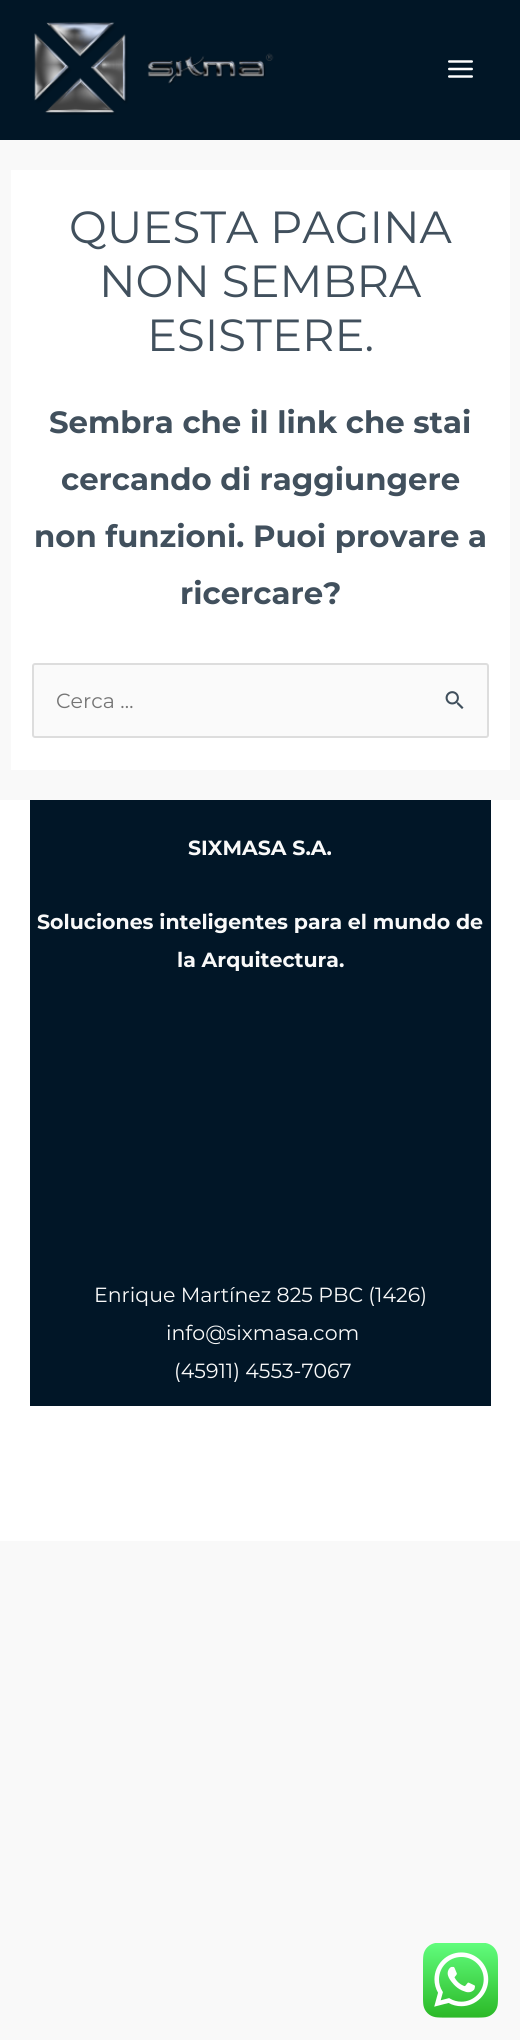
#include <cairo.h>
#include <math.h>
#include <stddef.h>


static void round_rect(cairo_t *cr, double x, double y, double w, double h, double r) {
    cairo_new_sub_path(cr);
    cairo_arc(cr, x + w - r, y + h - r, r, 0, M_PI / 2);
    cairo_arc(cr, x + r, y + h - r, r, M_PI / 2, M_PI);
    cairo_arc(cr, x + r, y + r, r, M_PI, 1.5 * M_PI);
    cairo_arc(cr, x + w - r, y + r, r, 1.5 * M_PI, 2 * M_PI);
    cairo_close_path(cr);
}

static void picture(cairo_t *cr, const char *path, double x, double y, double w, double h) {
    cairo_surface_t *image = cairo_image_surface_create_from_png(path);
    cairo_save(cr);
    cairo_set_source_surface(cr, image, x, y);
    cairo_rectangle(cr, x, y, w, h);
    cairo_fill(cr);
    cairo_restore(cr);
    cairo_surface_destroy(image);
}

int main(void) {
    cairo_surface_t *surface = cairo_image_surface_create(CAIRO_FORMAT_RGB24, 520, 2040);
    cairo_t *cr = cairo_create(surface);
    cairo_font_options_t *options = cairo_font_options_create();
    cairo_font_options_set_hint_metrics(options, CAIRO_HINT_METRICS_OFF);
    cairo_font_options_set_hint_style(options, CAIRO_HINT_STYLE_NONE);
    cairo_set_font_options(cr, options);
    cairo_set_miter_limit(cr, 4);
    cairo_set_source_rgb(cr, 0.976, 0.973, 0.973);
    cairo_paint(cr);
    cairo_set_source_rgb(cr, 0.004, 0.086, 0.149);
    cairo_rectangle(cr, 0, 0, 520, 140);
    cairo_fill(cr);
    picture(cr, "img1.png", 34, 22, 240, 93);
    picture(cr, "img2.png", 448, 60, 25, 18);
    cairo_set_source_rgb(cr, 1, 1, 1);
    cairo_rectangle(cr, 11, 170, 499, 600);
    cairo_fill(cr);
    cairo_select_font_face(cr, "Montserrat", CAIRO_FONT_SLANT_NORMAL, CAIRO_FONT_WEIGHT_NORMAL);
    cairo_set_font_size(cr, 45);
    cairo_set_source_rgb(cr, 0.255, 0.314, 0.365);
    cairo_move_to(cr, 69, 243);
    cairo_show_text(cr, "QUESTA PAGINA");
    cairo_move_to(cr, 99, 297);
    cairo_show_text(cr, "NON SEMBRA");
    cairo_move_to(cr, 147, 351);
    cairo_show_text(cr, "ESISTERE.");
    cairo_select_font_face(cr, "Montserrat", CAIRO_FONT_SLANT_NORMAL, CAIRO_FONT_WEIGHT_BOLD);
    cairo_set_font_size(cr, 30.75);
    cairo_move_to(cr, 49, 433);
    cairo_show_text(cr, "Sembra che il link che stai");
    cairo_move_to(cr, 61, 490);
    cairo_show_text(cr, "cercando di raggiungere");
    cairo_move_to(cr, 34, 547);
    cairo_show_text(cr, "non funzioni. Puoi provare a");
    cairo_move_to(cr, 180, 604);
    cairo_show_text(cr, "ricercare?");
    cairo_set_source_rgb(cr, 0.98, 0.98, 0.98);
    round_rect(cr, 33, 664, 455, 73, 2);
    cairo_fill_preserve(cr);
    cairo_set_source_rgb(cr, 0.867, 0.867, 0.867);
    cairo_stroke(cr);
    cairo_select_font_face(cr, "Montserrat", CAIRO_FONT_SLANT_NORMAL, CAIRO_FONT_WEIGHT_NORMAL);
    cairo_set_font_size(cr, 20.5);
    cairo_set_source_rgb(cr, 0.459, 0.459, 0.459);
    cairo_move_to(cr, 56, 708);
    cairo_show_text(cr, "Cerca …");
    picture(cr, "img3.png", 445, 691, 19, 18);
    cairo_set_source_rgb(cr, 1, 1, 1);
    cairo_rectangle(cr, 0, 800, 520, 741);
    cairo_fill(cr);
    cairo_set_source_rgb(cr, 0.004, 0.086, 0.153);
    cairo_rectangle(cr, 30, 800, 461, 606);
    cairo_fill(cr);
    cairo_select_font_face(cr, "Montserrat", CAIRO_FONT_SLANT_NORMAL, CAIRO_FONT_WEIGHT_BOLD);
    cairo_set_source_rgb(cr, 0.976, 0.973, 0.973);
    cairo_move_to(cr, 188, 855);
    cairo_show_text(cr, "SIXMASA S.A.");
    cairo_move_to(cr, 37, 929);
    cairo_show_text(cr, "Soluciones inteligentes para el mundo de");
    cairo_move_to(cr, 177, 967);
    cairo_show_text(cr, "la Arquitectura.");
    cairo_select_font_face(cr, "Montserrat", CAIRO_FONT_SLANT_NORMAL, CAIRO_FONT_WEIGHT_NORMAL);
    cairo_move_to(cr, 94, 1302);
    cairo_show_text(cr, "Enrique Martínez 825 PBC (1426)");
    cairo_move_to(cr, 166, 1340);
    cairo_show_text(cr, "info@sixmasa.com");
    cairo_move_to(cr, 174, 1378);
    cairo_show_text(cr, "(45911) 4553-7067");
    picture(cr, "img4.png", 423, 1943, 75, 75);
    cairo_surface_write_to_png(surface, "page.png");
    cairo_font_options_destroy(options);
    cairo_destroy(cr);
    cairo_surface_destroy(surface);
    return 0;
}
